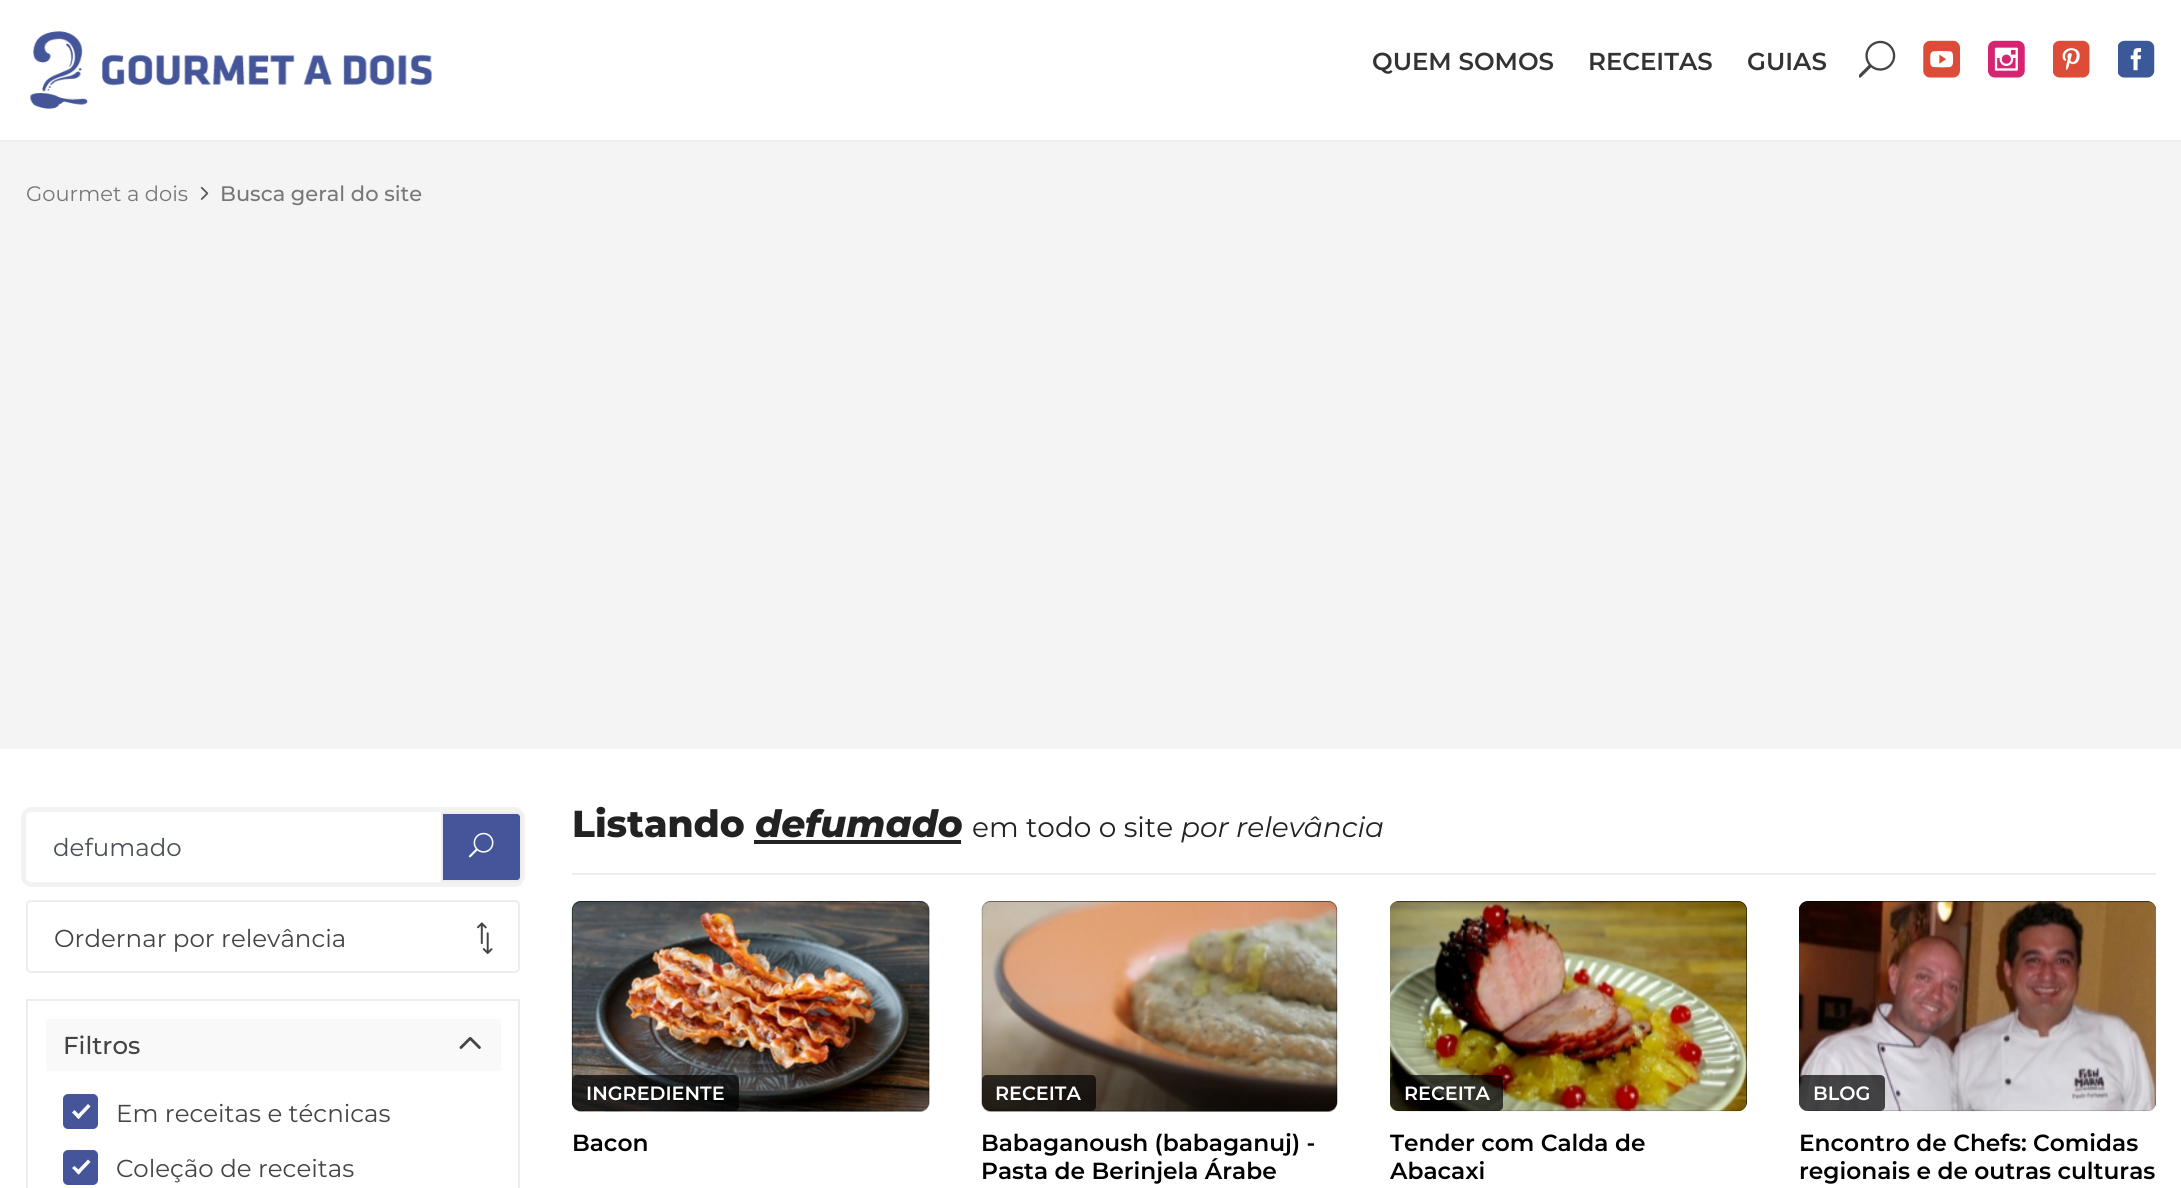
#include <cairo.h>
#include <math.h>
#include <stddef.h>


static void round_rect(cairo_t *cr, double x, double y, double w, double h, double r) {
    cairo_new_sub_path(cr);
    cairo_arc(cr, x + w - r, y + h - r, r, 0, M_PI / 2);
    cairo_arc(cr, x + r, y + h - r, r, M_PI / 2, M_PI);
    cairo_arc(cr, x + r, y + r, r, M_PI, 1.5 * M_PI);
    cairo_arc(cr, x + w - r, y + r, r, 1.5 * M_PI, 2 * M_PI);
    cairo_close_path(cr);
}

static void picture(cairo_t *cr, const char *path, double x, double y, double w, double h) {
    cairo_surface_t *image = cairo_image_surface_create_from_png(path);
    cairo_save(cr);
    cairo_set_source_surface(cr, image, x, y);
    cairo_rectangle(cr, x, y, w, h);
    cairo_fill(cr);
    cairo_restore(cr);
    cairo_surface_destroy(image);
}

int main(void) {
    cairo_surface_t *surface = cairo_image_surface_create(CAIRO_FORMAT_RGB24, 2181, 1188);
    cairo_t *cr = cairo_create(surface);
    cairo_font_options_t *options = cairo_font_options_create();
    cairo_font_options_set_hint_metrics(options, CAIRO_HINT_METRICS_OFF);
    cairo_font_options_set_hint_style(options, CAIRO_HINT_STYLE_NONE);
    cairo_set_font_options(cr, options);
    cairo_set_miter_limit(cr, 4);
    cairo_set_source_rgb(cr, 1, 1, 1);
    cairo_paint(cr);
    cairo_set_source_rgb(cr, 0.929, 0.929, 0.929);
    cairo_rectangle(cr, 0, 140, 2181, 2);
    cairo_fill(cr);
    picture(cr, "img1.png", 30, 31, 402, 78);
    cairo_select_font_face(cr, "Montserrat SemiBold", CAIRO_FONT_SLANT_NORMAL, CAIRO_FONT_WEIGHT_NORMAL);
    cairo_set_font_size(cr, 24.5);
    cairo_set_source_rgb(cr, 0.2, 0.2, 0.2);
    cairo_move_to(cr, 1372, 70);
    cairo_show_text(cr, "QUEM SOMOS");
    cairo_move_to(cr, 1588, 70);
    cairo_show_text(cr, "RECEITAS");
    cairo_move_to(cr, 1747, 70);
    cairo_show_text(cr, "GUIAS");
    picture(cr, "img2.png", 1859, 40, 37, 38);
    picture(cr, "img3.png", 1923, 40, 37, 38);
    picture(cr, "img4.png", 1988, 40, 37, 38);
    picture(cr, "img5.png", 2053, 40, 37, 38);
    picture(cr, "img6.png", 2118, 40, 37, 38);
    cairo_set_source_rgb(cr, 0.957, 0.957, 0.957);
    cairo_rectangle(cr, 0, 142, 2181, 607);
    cairo_fill(cr);
    cairo_select_font_face(cr, "Montserrat", CAIRO_FONT_SLANT_NORMAL, CAIRO_FONT_WEIGHT_NORMAL);
    cairo_set_font_size(cr, 21);
    cairo_set_source_rgb(cr, 0.467, 0.467, 0.467);
    cairo_move_to(cr, 26, 201);
    cairo_show_text(cr, "Gourmet a dois");
    picture(cr, "img7.png", 200, 186, 9, 14);
    cairo_select_font_face(cr, "Montserrat Medium", CAIRO_FONT_SLANT_NORMAL, CAIRO_FONT_WEIGHT_NORMAL);
    cairo_move_to(cr, 220, 201);
    cairo_show_text(cr, "Busca geral do site");
    round_rect(cr, 24, 810, 498, 74, 8);
    cairo_set_source_rgb(cr, 0.949, 0.949, 0.949);
    cairo_set_line_width(cr, 6);
    cairo_stroke(cr);
    cairo_set_source_rgb(cr, 1, 1, 1);
    round_rect(cr, 26, 812, 494, 70, 5);
    cairo_fill(cr);
    cairo_select_font_face(cr, "Montserrat", CAIRO_FONT_SLANT_NORMAL, CAIRO_FONT_WEIGHT_NORMAL);
    cairo_set_font_size(cr, 24.5);
    cairo_set_source_rgb(cr, 0.286, 0.314, 0.341);
    cairo_move_to(cr, 53, 856);
    cairo_show_text(cr, "defumado");
    cairo_set_source_rgb(cr, 0.267, 0.337, 0.6);
    cairo_new_path(cr);
    cairo_move_to(cr, 442, 813);
    cairo_line_to(cr, 517, 813);
    cairo_curve_to(cr, 519, 813, 521, 815, 521, 817);
    cairo_line_to(cr, 521, 877);
    cairo_curve_to(cr, 521, 879, 519, 881, 517, 881);
    cairo_line_to(cr, 442, 881);
    cairo_close_path(cr);
    cairo_fill_preserve(cr);
    cairo_set_source_rgb(cr, 0.925, 0.925, 0.925);
    cairo_set_line_width(cr, 2);
    cairo_stroke(cr);
    picture(cr, "img8.png", 468, 832, 26, 26);
    round_rect(cr, 27, 901, 492, 71, 4);
    cairo_set_source_rgb(cr, 0.929, 0.929, 0.929);
    cairo_stroke(cr);
    cairo_set_source_rgb(cr, 0.267, 0.267, 0.267);
    cairo_move_to(cr, 54, 947);
    cairo_show_text(cr, "Ordernar por relevância");
    picture(cr, "img9.png", 477, 922, 16, 32);
    cairo_rectangle(cr, 27, 1000, 492, 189);
    cairo_set_source_rgb(cr, 0.929, 0.929, 0.929);
    cairo_stroke(cr);
    cairo_set_source_rgb(cr, 0.973, 0.973, 0.973);
    cairo_rectangle(cr, 46, 1019, 455, 52);
    cairo_fill(cr);
    cairo_select_font_face(cr, "Montserrat Medium", CAIRO_FONT_SLANT_NORMAL, CAIRO_FONT_WEIGHT_NORMAL);
    cairo_set_source_rgb(cr, 0.267, 0.267, 0.267);
    cairo_move_to(cr, 63, 1054);
    cairo_show_text(cr, "Filtros");
    picture(cr, "img10.png", 459, 1036, 22, 13);
    cairo_set_source_rgb(cr, 0.267, 0.337, 0.6);
    round_rect(cr, 63, 1094, 35, 35, 5);
    cairo_fill(cr);
    cairo_set_source_rgb(cr, 1, 1, 1);
    cairo_new_path(cr);
    cairo_move_to(cr, 88, 1104);
    cairo_line_to(cr, 90.5, 1106.5);
    cairo_line_to(cr, 78.5, 1119);
    cairo_line_to(cr, 76, 1116.5);
    cairo_close_path(cr);
    cairo_fill(cr);
    cairo_new_path(cr);
    cairo_move_to(cr, 74.5, 1110);
    cairo_line_to(cr, 81, 1116.5);
    cairo_line_to(cr, 78.5, 1119);
    cairo_line_to(cr, 72, 1112.5);
    cairo_close_path(cr);
    cairo_fill(cr);
    cairo_select_font_face(cr, "Montserrat", CAIRO_FONT_SLANT_NORMAL, CAIRO_FONT_WEIGHT_NORMAL);
    cairo_set_source_rgb(cr, 0.267, 0.267, 0.267);
    cairo_move_to(cr, 116, 1122);
    cairo_show_text(cr, "Em receitas e técnicas");
    cairo_set_source_rgb(cr, 0.267, 0.337, 0.6);
    round_rect(cr, 63, 1150, 35, 35, 5);
    cairo_fill(cr);
    cairo_set_source_rgb(cr, 1, 1, 1);
    cairo_new_path(cr);
    cairo_move_to(cr, 88, 1159.5);
    cairo_line_to(cr, 90.5, 1162);
    cairo_line_to(cr, 78.5, 1174.5);
    cairo_line_to(cr, 76, 1172);
    cairo_close_path(cr);
    cairo_fill(cr);
    cairo_new_path(cr);
    cairo_move_to(cr, 74.5, 1166);
    cairo_line_to(cr, 81, 1172);
    cairo_line_to(cr, 78.5, 1174.5);
    cairo_line_to(cr, 72, 1168);
    cairo_close_path(cr);
    cairo_fill(cr);
    cairo_set_source_rgb(cr, 0.267, 0.267, 0.267);
    cairo_move_to(cr, 116, 1177);
    cairo_show_text(cr, "Coleção de receitas");
    cairo_select_font_face(cr, "Montserrat ExtraBold", CAIRO_FONT_SLANT_NORMAL, CAIRO_FONT_WEIGHT_NORMAL);
    cairo_set_font_size(cr, 37.5);
    cairo_set_source_rgb(cr, 0.133, 0.133, 0.133);
    cairo_move_to(cr, 572, 837);
    cairo_show_text(cr, "Listando");
    cairo_select_font_face(cr, "Montserrat ExtraBold", CAIRO_FONT_SLANT_ITALIC, CAIRO_FONT_WEIGHT_NORMAL);
    cairo_move_to(cr, 755, 837);
    cairo_show_text(cr, "defumado");
    cairo_rectangle(cr, 754, 840, 207, 4);
    cairo_fill(cr);
    cairo_select_font_face(cr, "Montserrat", CAIRO_FONT_SLANT_NORMAL, CAIRO_FONT_WEIGHT_NORMAL);
    cairo_set_font_size(cr, 28);
    cairo_move_to(cr, 972, 837);
    cairo_show_text(cr, "em todo o site");
    cairo_select_font_face(cr, "Montserrat", CAIRO_FONT_SLANT_ITALIC, CAIRO_FONT_WEIGHT_NORMAL);
    cairo_move_to(cr, 1181, 837);
    cairo_show_text(cr, "por relevância");
    cairo_set_source_rgb(cr, 0.929, 0.929, 0.929);
    cairo_rectangle(cr, 572, 873, 1584, 2);
    cairo_fill(cr);
    cairo_set_source_rgb(cr, 0, 0, 0);
    round_rect(cr, 572, 901, 357, 210, 9);
    cairo_fill(cr);
    picture(cr, "img11.png", 571, 900, 359, 212);
    cairo_set_source_rgba(cr, 0, 0, 0, 0.7);
    cairo_new_path(cr);
    cairo_move_to(cr, 577, 1075);
    cairo_line_to(cr, 734, 1075);
    cairo_curve_to(cr, 737, 1075, 739, 1077, 739, 1080);
    cairo_line_to(cr, 739, 1106);
    cairo_curve_to(cr, 739, 1109, 737, 1111, 734, 1111);
    cairo_line_to(cr, 581, 1111);
    cairo_curve_to(cr, 576, 1111, 572, 1107, 572, 1102);
    cairo_line_to(cr, 572, 1080);
    cairo_curve_to(cr, 572, 1077, 574, 1075, 577, 1075);
    cairo_close_path(cr);
    cairo_fill(cr);
    cairo_select_font_face(cr, "Montserrat SemiBold", CAIRO_FONT_SLANT_NORMAL, CAIRO_FONT_WEIGHT_NORMAL);
    cairo_set_font_size(cr, 19.25);
    cairo_set_source_rgb(cr, 1, 1, 1);
    cairo_move_to(cr, 586, 1100);
    cairo_show_text(cr, "INGREDIENTE");
    cairo_set_font_size(cr, 23.3);
    cairo_set_source_rgb(cr, 0, 0, 0);
    cairo_move_to(cr, 572, 1151);
    cairo_show_text(cr, "Bacon");
    round_rect(cr, 982, 901, 355, 210, 9);
    cairo_fill(cr);
    picture(cr, "img12.png", 981, 900, 357, 212);
    cairo_set_source_rgba(cr, 0, 0, 0, 0.7);
    cairo_new_path(cr);
    cairo_move_to(cr, 987, 1075);
    cairo_line_to(cr, 1091, 1075);
    cairo_curve_to(cr, 1094, 1075, 1096, 1077, 1096, 1080);
    cairo_line_to(cr, 1096, 1106);
    cairo_curve_to(cr, 1096, 1109, 1094, 1111, 1091, 1111);
    cairo_line_to(cr, 991, 1111);
    cairo_curve_to(cr, 986, 1111, 982, 1107, 982, 1102);
    cairo_line_to(cr, 982, 1080);
    cairo_curve_to(cr, 982, 1077, 984, 1075, 987, 1075);
    cairo_close_path(cr);
    cairo_fill(cr);
    cairo_set_font_size(cr, 19.25);
    cairo_set_source_rgb(cr, 1, 1, 1);
    cairo_move_to(cr, 995, 1100);
    cairo_show_text(cr, "RECEITA");
    cairo_set_font_size(cr, 23.3);
    cairo_set_source_rgb(cr, 0, 0, 0);
    cairo_move_to(cr, 981, 1151);
    cairo_show_text(cr, "Babaganoush (babaganuj) -");
    cairo_move_to(cr, 981, 1179);
    cairo_show_text(cr, "Pasta de Berinjela Árabe");
    round_rect(cr, 1390, 901, 357, 210, 9);
    cairo_fill(cr);
    picture(cr, "img13.png", 1390, 901, 357, 211);
    cairo_set_source_rgba(cr, 0, 0, 0, 0.7);
    cairo_new_path(cr);
    cairo_move_to(cr, 1395, 1075);
    cairo_line_to(cr, 1498, 1075);
    cairo_curve_to(cr, 1501, 1075, 1503, 1077, 1503, 1080);
    cairo_line_to(cr, 1503, 1106);
    cairo_curve_to(cr, 1503, 1109, 1501, 1111, 1498, 1111);
    cairo_line_to(cr, 1399, 1111);
    cairo_curve_to(cr, 1394, 1111, 1390, 1107, 1390, 1102);
    cairo_line_to(cr, 1390, 1080);
    cairo_curve_to(cr, 1390, 1077, 1392, 1075, 1395, 1075);
    cairo_close_path(cr);
    cairo_fill(cr);
    cairo_set_font_size(cr, 19.25);
    cairo_set_source_rgb(cr, 1, 1, 1);
    cairo_move_to(cr, 1404, 1100);
    cairo_show_text(cr, "RECEITA");
    cairo_set_font_size(cr, 23.3);
    cairo_set_source_rgb(cr, 0, 0, 0);
    cairo_move_to(cr, 1390, 1151);
    cairo_show_text(cr, "Tender com Calda de");
    cairo_move_to(cr, 1390, 1179);
    cairo_show_text(cr, "Abacaxi");
    round_rect(cr, 1799, 901, 357, 210, 9);
    cairo_fill(cr);
    picture(cr, "img14.png", 1799, 901, 357, 211);
    cairo_set_source_rgba(cr, 0, 0, 0, 0.7);
    cairo_new_path(cr);
    cairo_move_to(cr, 1804, 1075);
    cairo_line_to(cr, 1880, 1075);
    cairo_curve_to(cr, 1883, 1075, 1885, 1077, 1885, 1080);
    cairo_line_to(cr, 1885, 1106);
    cairo_curve_to(cr, 1885, 1109, 1883, 1111, 1880, 1111);
    cairo_line_to(cr, 1808, 1111);
    cairo_curve_to(cr, 1803, 1111, 1799, 1107, 1799, 1102);
    cairo_line_to(cr, 1799, 1080);
    cairo_curve_to(cr, 1799, 1077, 1801, 1075, 1804, 1075);
    cairo_close_path(cr);
    cairo_fill(cr);
    cairo_set_font_size(cr, 19.25);
    cairo_set_source_rgb(cr, 1, 1, 1);
    cairo_move_to(cr, 1813, 1100);
    cairo_show_text(cr, "BLOG");
    cairo_set_font_size(cr, 23.3);
    cairo_set_source_rgb(cr, 0, 0, 0);
    cairo_move_to(cr, 1799, 1151);
    cairo_show_text(cr, "Encontro de Chefs: Comidas");
    cairo_move_to(cr, 1799, 1179);
    cairo_show_text(cr, "regionais e de outras culturas");
    cairo_surface_write_to_png(surface, "page.png");
    cairo_font_options_destroy(options);
    cairo_destroy(cr);
    cairo_surface_destroy(surface);
    return 0;
}
